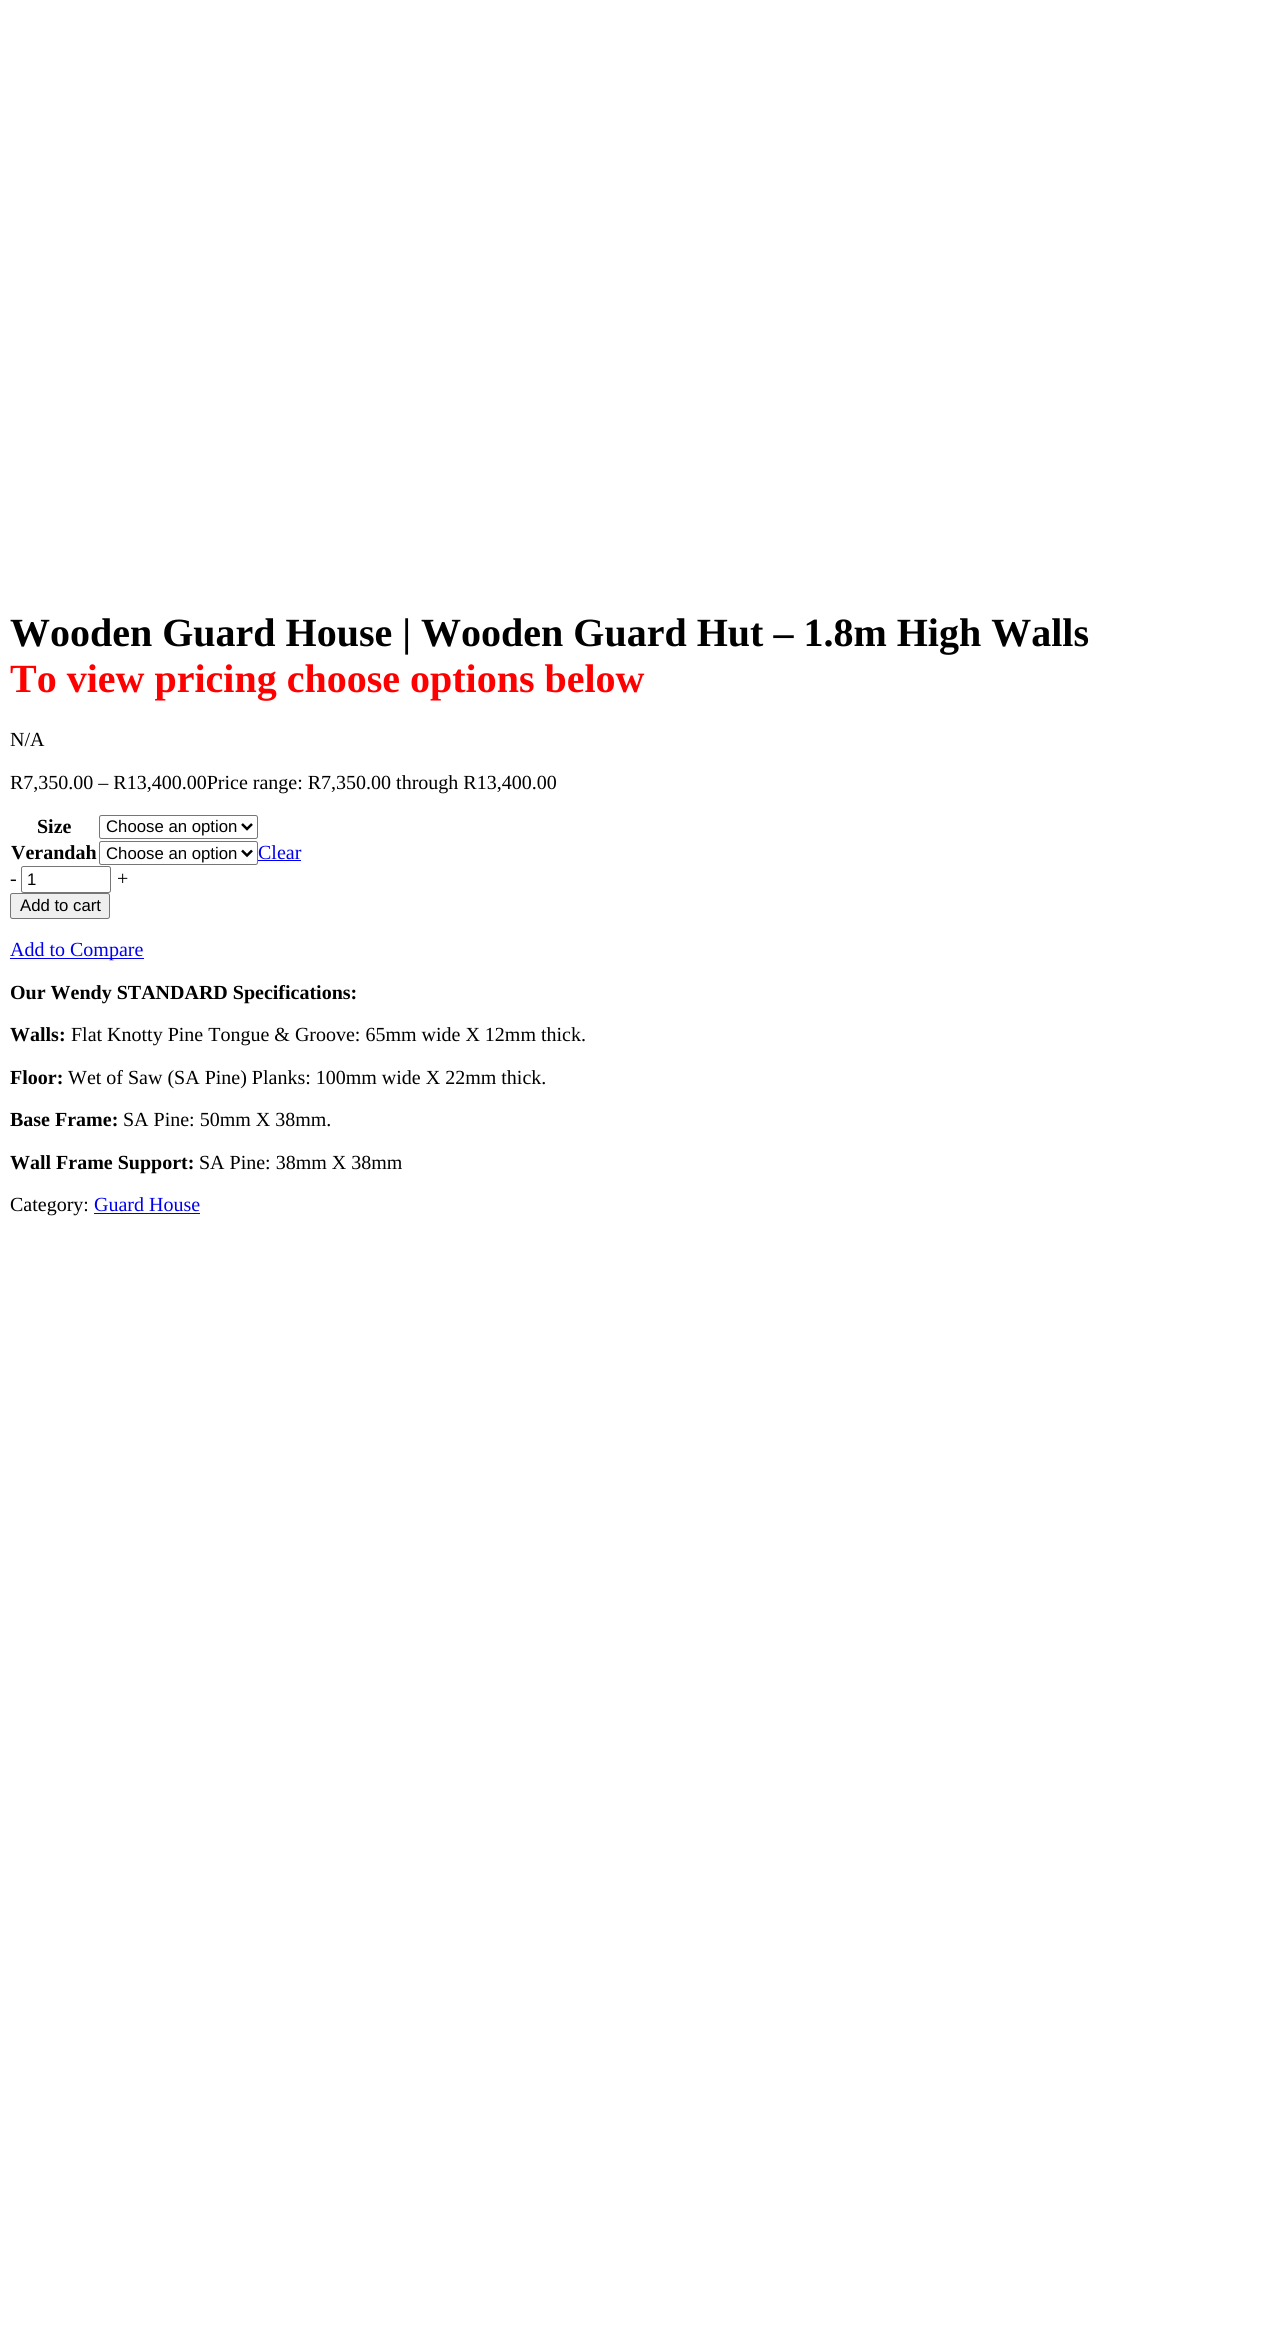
#include <cairo.h>
#include <math.h>
#include <stddef.h>


static void round_rect(cairo_t *cr, double x, double y, double w, double h, double r) {
    cairo_new_sub_path(cr);
    cairo_arc(cr, x + w - r, y + h - r, r, 0, M_PI / 2);
    cairo_arc(cr, x + r, y + h - r, r, M_PI / 2, M_PI);
    cairo_arc(cr, x + r, y + r, r, M_PI, 1.5 * M_PI);
    cairo_arc(cr, x + w - r, y + r, r, 1.5 * M_PI, 2 * M_PI);
    cairo_close_path(cr);
}

int main(void) {
    cairo_surface_t *surface = cairo_image_surface_create(CAIRO_FORMAT_RGB24, 1273, 2341);
    cairo_t *cr = cairo_create(surface);
    cairo_font_options_t *options = cairo_font_options_create();
    cairo_font_options_set_hint_metrics(options, CAIRO_HINT_METRICS_OFF);
    cairo_font_options_set_hint_style(options, CAIRO_HINT_STYLE_NONE);
    cairo_set_font_options(cr, options);
    cairo_set_miter_limit(cr, 4);
    cairo_set_source_rgb(cr, 1, 1, 1);
    cairo_paint(cr);
    cairo_select_font_face(cr, "Liberation Serif", CAIRO_FONT_SLANT_NORMAL, CAIRO_FONT_WEIGHT_BOLD);
    cairo_set_font_size(cr, 40);
    cairo_set_source_rgb(cr, 0, 0, 0);
    cairo_move_to(cr, 10, 646);
    cairo_show_text(cr, "Wooden Guard House | Wooden Guard Hut – 1.8m High Walls");
    cairo_set_source_rgb(cr, 1, 0, 0);
    cairo_move_to(cr, 10, 692);
    cairo_show_text(cr, "To view pricing choose options below");
    cairo_select_font_face(cr, "Liberation Serif", CAIRO_FONT_SLANT_NORMAL, CAIRO_FONT_WEIGHT_NORMAL);
    cairo_set_font_size(cr, 20);
    cairo_set_source_rgb(cr, 0, 0, 0);
    cairo_move_to(cr, 10, 746);
    cairo_show_text(cr, "N/A");
    cairo_move_to(cr, 10, 789);
    cairo_show_text(cr, "R7,350.00 – R13,400.00Price range: R7,350.00 through R13,400.00");
    cairo_select_font_face(cr, "Liberation Serif", CAIRO_FONT_SLANT_NORMAL, CAIRO_FONT_WEIGHT_BOLD);
    cairo_move_to(cr, 37, 833);
    cairo_show_text(cr, "Size");
    round_rect(cr, 99.5, 815.5, 158, 23, 2);
    cairo_set_source_rgb(cr, 0.463, 0.463, 0.463);
    cairo_set_line_width(cr, 1);
    cairo_stroke(cr);
    cairo_new_path(cr);
    cairo_move_to(cr, 242, 824);
    cairo_line_to(cr, 247, 829);
    cairo_line_to(cr, 252, 824);
    cairo_set_source_rgb(cr, 0, 0, 0);
    cairo_set_line_width(cr, 2.5);
    cairo_stroke(cr);
    cairo_select_font_face(cr, "Liberation Sans", CAIRO_FONT_SLANT_NORMAL, CAIRO_FONT_WEIGHT_NORMAL);
    cairo_set_font_size(cr, 16.75);
    cairo_move_to(cr, 106, 832);
    cairo_show_text(cr, "Choose an option");
    cairo_select_font_face(cr, "Liberation Serif", CAIRO_FONT_SLANT_NORMAL, CAIRO_FONT_WEIGHT_BOLD);
    cairo_set_font_size(cr, 20);
    cairo_move_to(cr, 11, 859);
    cairo_show_text(cr, "Verandah");
    round_rect(cr, 99.5, 841.5, 158, 23, 2);
    cairo_set_source_rgb(cr, 0.463, 0.463, 0.463);
    cairo_set_line_width(cr, 1);
    cairo_stroke(cr);
    cairo_new_path(cr);
    cairo_move_to(cr, 242, 850.5);
    cairo_line_to(cr, 247, 855.5);
    cairo_line_to(cr, 252, 850.5);
    cairo_set_source_rgb(cr, 0, 0, 0);
    cairo_set_line_width(cr, 2.5);
    cairo_stroke(cr);
    cairo_select_font_face(cr, "Liberation Sans", CAIRO_FONT_SLANT_NORMAL, CAIRO_FONT_WEIGHT_NORMAL);
    cairo_set_font_size(cr, 16.75);
    cairo_move_to(cr, 106, 859);
    cairo_show_text(cr, "Choose an option");
    cairo_select_font_face(cr, "Liberation Serif", CAIRO_FONT_SLANT_NORMAL, CAIRO_FONT_WEIGHT_NORMAL);
    cairo_set_font_size(cr, 20);
    cairo_set_source_rgb(cr, 0, 0, 0.933);
    cairo_move_to(cr, 258, 859);
    cairo_show_text(cr, "Clear");
    cairo_rectangle(cr, 258, 860, 43, 1);
    cairo_fill(cr);
    cairo_set_source_rgb(cr, 0, 0, 0);
    cairo_move_to(cr, 10, 885);
    cairo_show_text(cr, "-");
    round_rect(cr, 21.5, 866.5, 89, 26, 2);
    cairo_set_source_rgb(cr, 0.463, 0.463, 0.463);
    cairo_set_line_width(cr, 1);
    cairo_stroke(cr);
    cairo_select_font_face(cr, "Liberation Sans", CAIRO_FONT_SLANT_NORMAL, CAIRO_FONT_WEIGHT_NORMAL);
    cairo_set_font_size(cr, 16.75);
    cairo_set_source_rgb(cr, 0, 0, 0);
    cairo_move_to(cr, 27, 885);
    cairo_show_text(cr, "1");
    cairo_select_font_face(cr, "Liberation Serif", CAIRO_FONT_SLANT_NORMAL, CAIRO_FONT_WEIGHT_NORMAL);
    cairo_set_font_size(cr, 20);
    cairo_move_to(cr, 117, 885);
    cairo_show_text(cr, "+");
    cairo_set_source_rgb(cr, 0.937, 0.937, 0.937);
    round_rect(cr, 10.5, 893.5, 99, 25, 2);
    cairo_fill_preserve(cr);
    cairo_set_source_rgb(cr, 0.463, 0.463, 0.463);
    cairo_stroke(cr);
    cairo_select_font_face(cr, "Liberation Sans", CAIRO_FONT_SLANT_NORMAL, CAIRO_FONT_WEIGHT_NORMAL);
    cairo_set_font_size(cr, 16.75);
    cairo_set_source_rgb(cr, 0, 0, 0);
    cairo_move_to(cr, 20, 911);
    cairo_show_text(cr, "Add to cart");
    cairo_set_source_rgb(cr, 0, 0, 0.933);
    cairo_rectangle(cr, 10, 958, 134, 1);
    cairo_fill(cr);
    cairo_select_font_face(cr, "Liberation Serif", CAIRO_FONT_SLANT_NORMAL, CAIRO_FONT_WEIGHT_NORMAL);
    cairo_set_font_size(cr, 20);
    cairo_move_to(cr, 10, 956);
    cairo_show_text(cr, "Add to Compare");
    cairo_select_font_face(cr, "Liberation Serif", CAIRO_FONT_SLANT_NORMAL, CAIRO_FONT_WEIGHT_BOLD);
    cairo_set_source_rgb(cr, 0, 0, 0);
    cairo_move_to(cr, 10, 999);
    cairo_show_text(cr, "Our Wendy STANDARD Specifications:");
    cairo_move_to(cr, 10, 1041);
    cairo_show_text(cr, "Walls:");
    cairo_select_font_face(cr, "Liberation Serif", CAIRO_FONT_SLANT_NORMAL, CAIRO_FONT_WEIGHT_NORMAL);
    cairo_move_to(cr, 71, 1041);
    cairo_show_text(cr, "Flat Knotty Pine Tongue & Groove: 65mm wide X 12mm thick.");
    cairo_select_font_face(cr, "Liberation Serif", CAIRO_FONT_SLANT_NORMAL, CAIRO_FONT_WEIGHT_BOLD);
    cairo_move_to(cr, 10, 1084);
    cairo_show_text(cr, "Floor:");
    cairo_select_font_face(cr, "Liberation Serif", CAIRO_FONT_SLANT_NORMAL, CAIRO_FONT_WEIGHT_NORMAL);
    cairo_move_to(cr, 68, 1084);
    cairo_show_text(cr, "Wet of Saw (SA Pine) Planks: 100mm wide X 22mm thick.");
    cairo_select_font_face(cr, "Liberation Serif", CAIRO_FONT_SLANT_NORMAL, CAIRO_FONT_WEIGHT_BOLD);
    cairo_move_to(cr, 10, 1126);
    cairo_show_text(cr, "Base Frame:");
    cairo_select_font_face(cr, "Liberation Serif", CAIRO_FONT_SLANT_NORMAL, CAIRO_FONT_WEIGHT_NORMAL);
    cairo_move_to(cr, 123, 1126);
    cairo_show_text(cr, "SA Pine: 50mm X 38mm.");
    cairo_select_font_face(cr, "Liberation Serif", CAIRO_FONT_SLANT_NORMAL, CAIRO_FONT_WEIGHT_BOLD);
    cairo_move_to(cr, 10, 1169);
    cairo_show_text(cr, "Wall Frame Support:");
    cairo_select_font_face(cr, "Liberation Serif", CAIRO_FONT_SLANT_NORMAL, CAIRO_FONT_WEIGHT_NORMAL);
    cairo_move_to(cr, 199, 1169);
    cairo_show_text(cr, "SA Pine: 38mm X 38mm");
    cairo_move_to(cr, 10, 1211);
    cairo_show_text(cr, "Category:");
    cairo_set_source_rgb(cr, 0, 0, 0.933);
    cairo_move_to(cr, 94, 1211);
    cairo_show_text(cr, "Guard House");
    cairo_rectangle(cr, 94, 1213, 106, 1);
    cairo_fill(cr);
    cairo_surface_write_to_png(surface, "page.png");
    cairo_font_options_destroy(options);
    cairo_destroy(cr);
    cairo_surface_destroy(surface);
    return 0;
}
